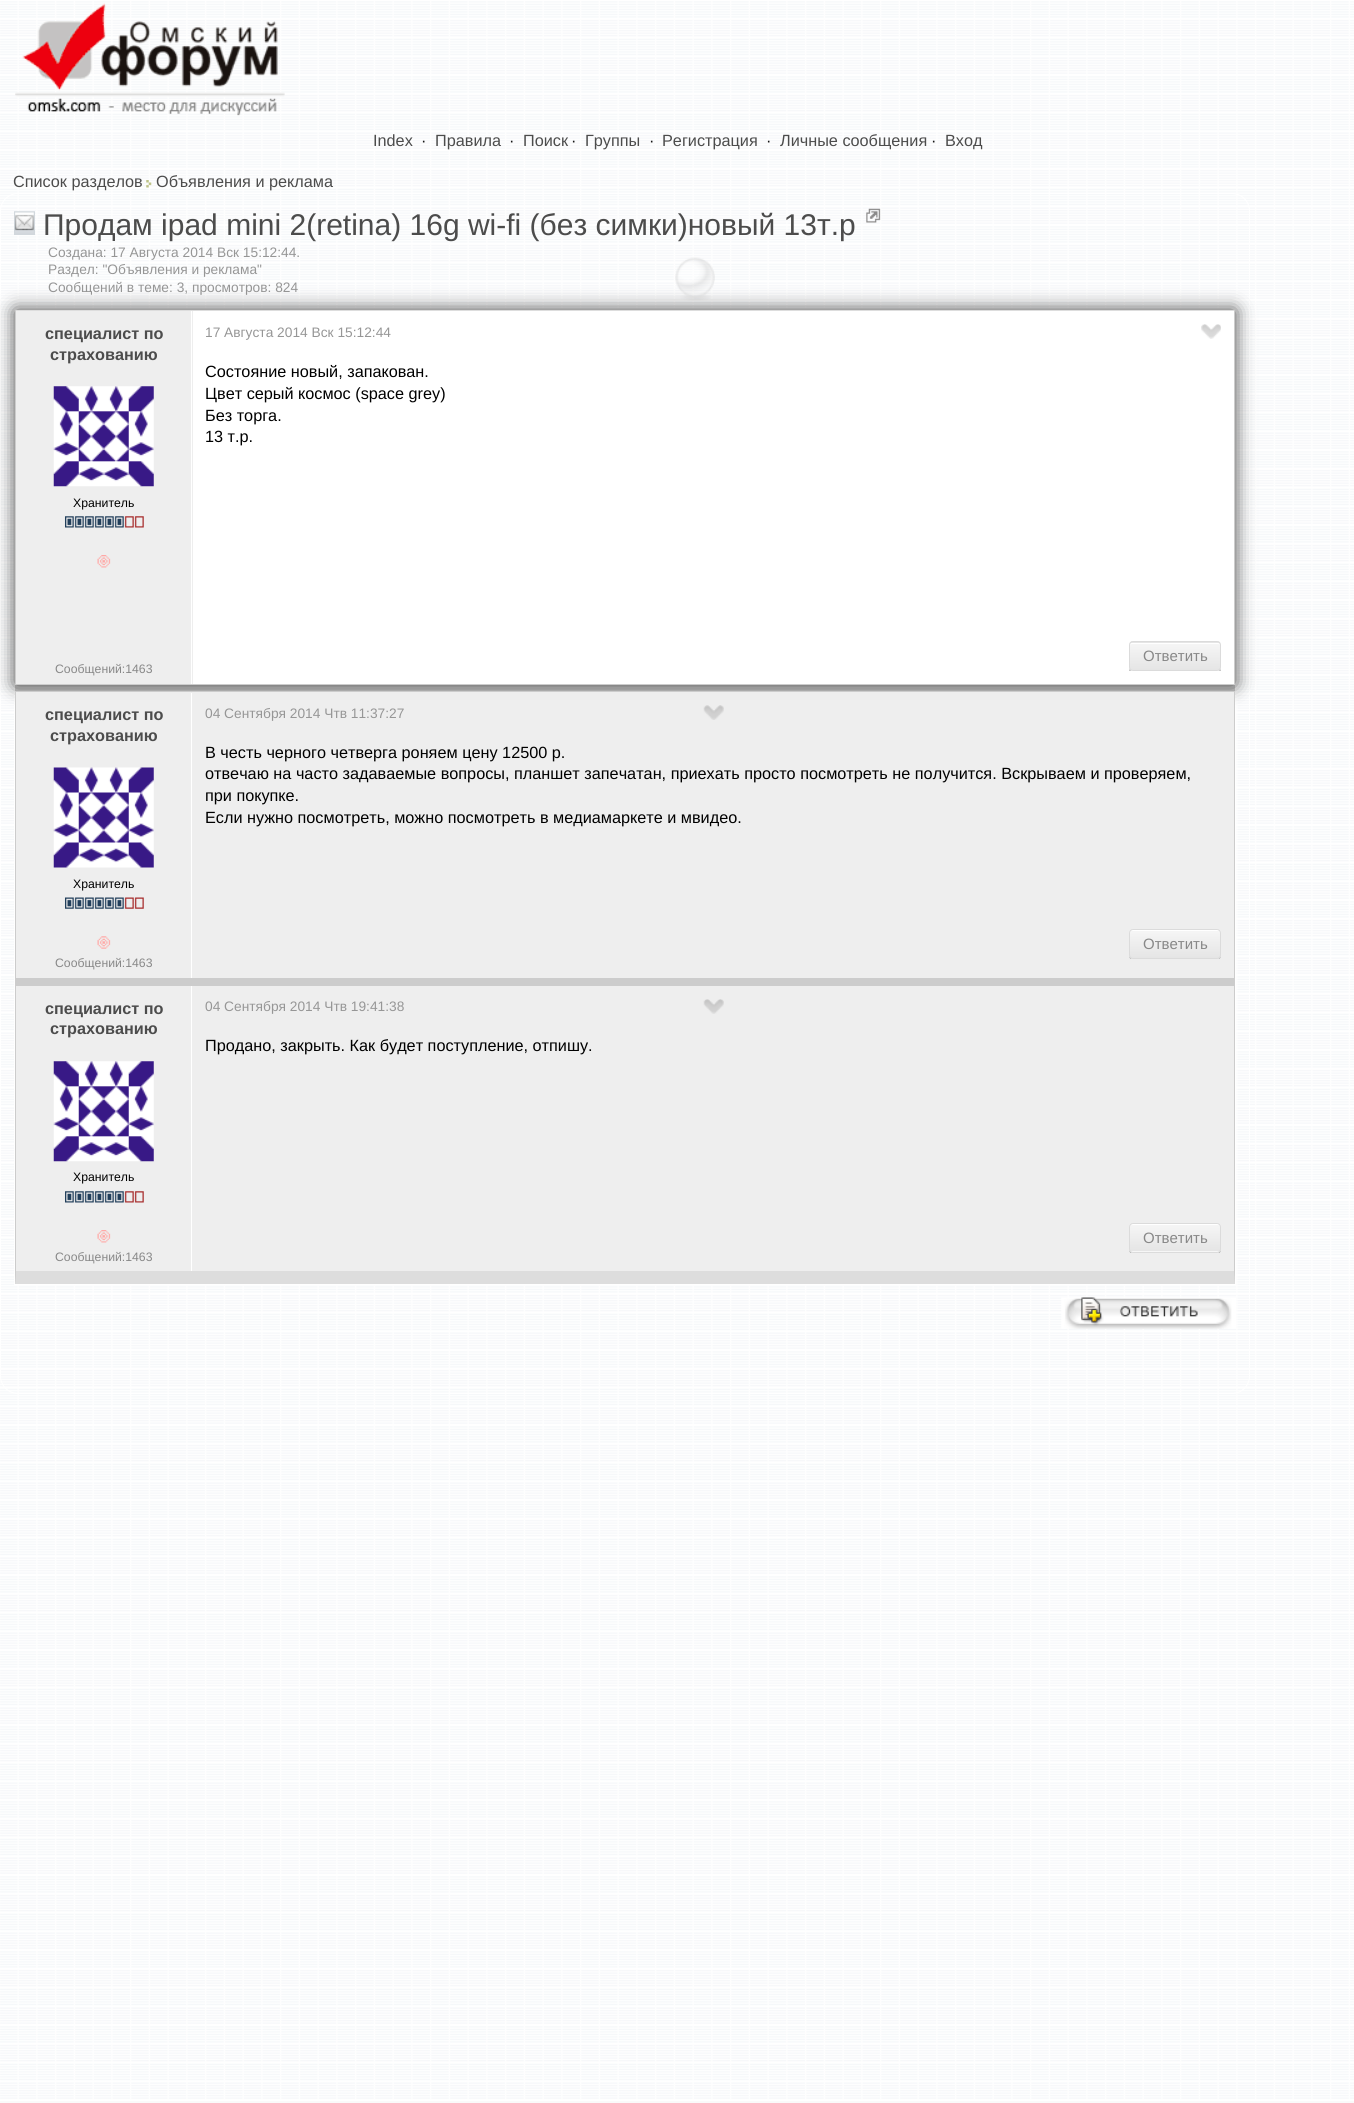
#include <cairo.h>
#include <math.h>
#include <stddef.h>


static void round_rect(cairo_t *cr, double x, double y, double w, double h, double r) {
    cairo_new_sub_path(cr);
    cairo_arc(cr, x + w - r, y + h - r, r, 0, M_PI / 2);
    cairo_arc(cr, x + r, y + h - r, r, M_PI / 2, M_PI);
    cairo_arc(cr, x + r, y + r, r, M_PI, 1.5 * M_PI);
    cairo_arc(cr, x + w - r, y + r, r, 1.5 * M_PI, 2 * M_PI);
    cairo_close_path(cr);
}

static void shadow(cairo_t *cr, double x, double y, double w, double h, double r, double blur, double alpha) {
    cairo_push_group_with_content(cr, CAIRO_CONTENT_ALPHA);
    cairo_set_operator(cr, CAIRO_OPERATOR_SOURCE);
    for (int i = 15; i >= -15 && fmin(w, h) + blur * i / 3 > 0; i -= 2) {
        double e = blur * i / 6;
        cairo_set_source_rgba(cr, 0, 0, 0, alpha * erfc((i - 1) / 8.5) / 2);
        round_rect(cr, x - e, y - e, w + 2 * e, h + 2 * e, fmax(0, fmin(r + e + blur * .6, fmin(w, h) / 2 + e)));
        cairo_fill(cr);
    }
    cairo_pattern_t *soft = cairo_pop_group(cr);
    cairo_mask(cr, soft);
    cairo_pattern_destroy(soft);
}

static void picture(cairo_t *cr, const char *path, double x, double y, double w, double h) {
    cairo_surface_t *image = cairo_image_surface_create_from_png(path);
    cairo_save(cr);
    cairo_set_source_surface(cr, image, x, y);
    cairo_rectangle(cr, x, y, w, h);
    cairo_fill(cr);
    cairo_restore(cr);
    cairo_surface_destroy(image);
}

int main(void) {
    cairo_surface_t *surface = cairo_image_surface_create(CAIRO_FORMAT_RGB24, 1354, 2103);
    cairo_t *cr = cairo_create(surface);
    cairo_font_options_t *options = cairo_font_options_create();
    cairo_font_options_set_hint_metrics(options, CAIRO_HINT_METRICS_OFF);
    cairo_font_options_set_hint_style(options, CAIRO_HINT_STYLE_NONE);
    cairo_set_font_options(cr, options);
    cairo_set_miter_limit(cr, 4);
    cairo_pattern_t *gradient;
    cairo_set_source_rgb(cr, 0.98, 0.98, 0.98);
    cairo_paint(cr);
    picture(cr, "img1.png", 0, 0, 1354, 2101);
    picture(cr, "img2.png", 15, 3, 270, 113);
    cairo_select_font_face(cr, "Liberation Sans", CAIRO_FONT_SLANT_NORMAL, CAIRO_FONT_WEIGHT_NORMAL);
    cairo_set_font_size(cr, 16.25);
    cairo_set_source_rgb(cr, 0.298, 0.298, 0.298);
    cairo_move_to(cr, 373, 146);
    cairo_show_text(cr, "Index");
    cairo_set_source_rgb(cr, 0.078, 0.078, 0.078);
    cairo_move_to(cr, 421, 146);
    cairo_show_text(cr, "·");
    cairo_set_source_rgb(cr, 0.298, 0.298, 0.298);
    cairo_move_to(cr, 435, 146);
    cairo_show_text(cr, "Правила");
    cairo_set_source_rgb(cr, 0.078, 0.078, 0.078);
    cairo_move_to(cr, 509, 146);
    cairo_show_text(cr, "·");
    cairo_set_source_rgb(cr, 0.298, 0.298, 0.298);
    cairo_move_to(cr, 523, 146);
    cairo_show_text(cr, "Поиск");
    cairo_set_source_rgb(cr, 0.078, 0.078, 0.078);
    cairo_move_to(cr, 571, 146);
    cairo_show_text(cr, "·");
    cairo_set_source_rgb(cr, 0.298, 0.298, 0.298);
    cairo_move_to(cr, 585, 146);
    cairo_show_text(cr, "Группы");
    cairo_set_source_rgb(cr, 0.078, 0.078, 0.078);
    cairo_move_to(cr, 649, 146);
    cairo_show_text(cr, "·");
    cairo_set_source_rgb(cr, 0.298, 0.298, 0.298);
    cairo_move_to(cr, 662, 146);
    cairo_show_text(cr, "Регистрация");
    cairo_set_source_rgb(cr, 0.078, 0.078, 0.078);
    cairo_move_to(cr, 766, 146);
    cairo_show_text(cr, "·");
    cairo_set_source_rgb(cr, 0.298, 0.298, 0.298);
    cairo_move_to(cr, 780, 146);
    cairo_show_text(cr, "Личные сообщения");
    cairo_set_source_rgb(cr, 0.078, 0.078, 0.078);
    cairo_move_to(cr, 931, 146);
    cairo_show_text(cr, "·");
    cairo_set_source_rgb(cr, 0.298, 0.298, 0.298);
    cairo_move_to(cr, 945, 146);
    cairo_show_text(cr, "Вход");
    cairo_move_to(cr, 13, 187);
    cairo_show_text(cr, "Список разделов");
    picture(cr, "img3.png", 146, 180, 6, 8);
    cairo_move_to(cr, 156, 187);
    cairo_show_text(cr, "Объявления и реклама");
    round_rect(cr, 0.5, 193.5, 1249, 1200, 17.5);
    cairo_set_source_rgb(cr, 1, 1, 1);
    cairo_set_line_width(cr, 1);
    cairo_stroke(cr);
    picture(cr, "img4.png", 14, 211, 21, 24);
    cairo_set_font_size(cr, 30);
    cairo_set_source_rgb(cr, 0.298, 0.298, 0.298);
    cairo_move_to(cr, 43, 235);
    cairo_show_text(cr, "Продам ipad mini 2(retina) 16g wi-fi (без симки)новый 13т.р");
    picture(cr, "img5.png", 866, 208, 15, 15);
    cairo_set_font_size(cr, 13.75);
    cairo_set_source_rgb(cr, 0.588, 0.588, 0.588);
    cairo_move_to(cr, 48, 257);
    cairo_show_text(cr, "Создана: 17 Августа 2014 Вск 15:12:44.");
    cairo_move_to(cr, 48, 274);
    cairo_show_text(cr, "Раздел: \"Объявления и реклама\"");
    cairo_move_to(cr, 48, 292);
    cairo_show_text(cr, "Сообщений в теме: 3, просмотров: 824");
    picture(cr, "img6.png", 675, 257, 40, 44);
    cairo_set_source_rgb(cr, 0.8, 0.8, 0.8);
    cairo_rectangle(cr, 15, 685, 1220, 599);
    cairo_fill(cr);
    cairo_rectangle(cr, 14.5, 309.5, 1221, 975);
    cairo_set_source_rgb(cr, 1, 1, 1);
    cairo_stroke(cr);
    cairo_set_source_rgb(cr, 0.267, 0.267, 0.267);
    shadow(cr, 15, 310, 1220, 375, 0, 9.5, 1);
    cairo_set_source_rgb(cr, 1, 1, 1);
    cairo_rectangle(cr, 193, 311, 1041, 373);
    cairo_fill(cr);
    cairo_set_source_rgb(cr, 0.867, 0.867, 0.867);
    cairo_rectangle(cr, 15, 310, 1220, 1);
    cairo_fill(cr);
    cairo_set_source_rgb(cr, 0.8, 0.8, 0.8);
    cairo_rectangle(cr, 1234, 310, 1, 375);
    cairo_fill(cr);
    cairo_rectangle(cr, 15, 684, 1220, 1);
    cairo_fill(cr);
    cairo_rectangle(cr, 15, 310, 1, 375);
    cairo_fill(cr);
    cairo_set_source_rgb(cr, 0.933, 0.933, 0.933);
    cairo_rectangle(cr, 16, 311, 177, 373);
    cairo_fill(cr);
    cairo_set_source_rgb(cr, 1, 1, 1);
    cairo_rectangle(cr, 191, 311, 1, 373);
    cairo_fill(cr);
    cairo_select_font_face(cr, "Liberation Sans", CAIRO_FONT_SLANT_NORMAL, CAIRO_FONT_WEIGHT_BOLD);
    cairo_set_font_size(cr, 16.25);
    cairo_set_source_rgb(cr, 0.298, 0.298, 0.298);
    cairo_move_to(cr, 45, 339);
    cairo_show_text(cr, "специалист по");
    cairo_move_to(cr, 50, 360);
    cairo_show_text(cr, "страхованию");
    picture(cr, "img7.png", 53, 386, 101, 101);
    cairo_select_font_face(cr, "Liberation Sans", CAIRO_FONT_SLANT_NORMAL, CAIRO_FONT_WEIGHT_NORMAL);
    cairo_set_font_size(cr, 12.25);
    cairo_set_source_rgb(cr, 0, 0, 0);
    cairo_move_to(cr, 73, 507);
    cairo_show_text(cr, "Хранитель");
    picture(cr, "img8.png", 65, 516, 79, 12);
    picture(cr, "img9.png", 97, 555, 14, 13);
    cairo_set_source_rgb(cr, 0.533, 0.533, 0.533);
    cairo_move_to(cr, 55, 673);
    cairo_show_text(cr, "Сообщений:1463");
    cairo_set_font_size(cr, 13.75);
    cairo_set_source_rgb(cr, 0.588, 0.588, 0.588);
    cairo_move_to(cr, 205, 337);
    cairo_show_text(cr, "17 Августа 2014 Вск 15:12:44");
    picture(cr, "img10.png", 1201, 324, 20, 15);
    cairo_set_font_size(cr, 16.25);
    cairo_set_source_rgb(cr, 0, 0, 0);
    cairo_move_to(cr, 205, 377);
    cairo_show_text(cr, "Состояние новый, запакован.");
    cairo_move_to(cr, 205, 399);
    cairo_show_text(cr, "Цвет серый космос (space grey)");
    cairo_move_to(cr, 205, 421);
    cairo_show_text(cr, "Без торга.");
    cairo_move_to(cr, 205, 442);
    cairo_show_text(cr, "13 т.р.");
    cairo_save(cr);
    cairo_rectangle(cr, 205, 641, 1016, 30);
    cairo_clip(cr);
    cairo_set_source_rgb(cr, 0.702, 0.702, 0.702);
    cairo_new_path(cr);
    cairo_move_to(cr, 1129, 669);
    cairo_curve_to(cr, 1129, 677, 1146, 673, 1147, 673);
    cairo_line_to(cr, 1203, 673);
    cairo_curve_to(cr, 1204, 673, 1221, 677, 1221, 669);
    cairo_curve_to(cr, 1220, 670, 1219, 671, 1218, 671);
    cairo_line_to(cr, 1132, 671);
    cairo_curve_to(cr, 1131, 671, 1130, 670, 1129, 669);
    cairo_close_path(cr);
    cairo_fill(cr);
    cairo_restore(cr);
    cairo_save(cr);
    round_rect(cr, 1129, 641, 92, 30, 4);
    cairo_clip(cr);
    gradient = cairo_pattern_create_linear(1130, 615, 1130, 643);
    cairo_pattern_add_color_stop_rgba(gradient, 0, 0.965, 0.965, 0.965, 1);
    cairo_pattern_add_color_stop_rgba(gradient, 1, 0.898, 0.898, 0.898, 1);
    cairo_set_source(cr, gradient);
    cairo_pattern_destroy(gradient);
    cairo_rectangle(cr, 1129, 641, 92, 2);
    cairo_fill(cr);
    gradient = cairo_pattern_create_linear(1130, 643, 1130, 670);
    cairo_pattern_add_color_stop_rgba(gradient, 0, 0.965, 0.965, 0.965, 1);
    cairo_pattern_add_color_stop_rgba(gradient, 1, 0.898, 0.898, 0.898, 1);
    cairo_set_source(cr, gradient);
    cairo_pattern_destroy(gradient);
    cairo_rectangle(cr, 1129, 643, 92, 27);
    cairo_fill(cr);
    cairo_restore(cr);
    cairo_set_source_rgb(cr, 1, 1, 1);
    cairo_new_path(cr);
    cairo_move_to(cr, 1132, 644);
    cairo_line_to(cr, 1218, 644);
    cairo_curve_to(cr, 1219, 644, 1220, 645, 1220, 646);
    cairo_curve_to(cr, 1220, 645, 1219, 643, 1218, 643);
    cairo_line_to(cr, 1132, 643);
    cairo_curve_to(cr, 1131, 643, 1130, 644, 1130, 646);
    cairo_curve_to(cr, 1130, 645, 1131, 644, 1132, 644);
    cairo_close_path(cr);
    cairo_fill(cr);
    round_rect(cr, 1129.5, 641.5, 91, 29, 3.5);
    cairo_set_source_rgb(cr, 0.859, 0.859, 0.859);
    cairo_stroke(cr);
    cairo_set_font_size(cr, 15);
    cairo_set_source_rgb(cr, 0.533, 0.533, 0.533);
    cairo_move_to(cr, 1143, 661);
    cairo_show_text(cr, "Ответить");
    cairo_set_source_rgb(cr, 0.933, 0.933, 0.933);
    cairo_rectangle(cr, 15.5, 691.5, 1219, 287);
    cairo_fill_preserve(cr);
    cairo_set_source_rgb(cr, 0.8, 0.8, 0.8);
    cairo_stroke(cr);
    cairo_set_source_rgb(cr, 1, 1, 1);
    cairo_rectangle(cr, 191, 693, 1, 285);
    cairo_fill(cr);
    cairo_select_font_face(cr, "Liberation Sans", CAIRO_FONT_SLANT_NORMAL, CAIRO_FONT_WEIGHT_BOLD);
    cairo_set_font_size(cr, 16.25);
    cairo_set_source_rgb(cr, 0.298, 0.298, 0.298);
    cairo_move_to(cr, 45, 720);
    cairo_show_text(cr, "специалист по");
    cairo_move_to(cr, 50, 741);
    cairo_show_text(cr, "страхованию");
    picture(cr, "img11.png", 53, 767, 101, 101);
    cairo_select_font_face(cr, "Liberation Sans", CAIRO_FONT_SLANT_NORMAL, CAIRO_FONT_WEIGHT_NORMAL);
    cairo_set_font_size(cr, 12.25);
    cairo_set_source_rgb(cr, 0, 0, 0);
    cairo_move_to(cr, 73, 888);
    cairo_show_text(cr, "Хранитель");
    picture(cr, "img12.png", 65, 897, 79, 12);
    picture(cr, "img13.png", 97, 936, 14, 13);
    cairo_set_source_rgb(cr, 0.533, 0.533, 0.533);
    cairo_move_to(cr, 55, 967);
    cairo_show_text(cr, "Сообщений:1463");
    cairo_set_font_size(cr, 13.75);
    cairo_set_source_rgb(cr, 0.588, 0.588, 0.588);
    cairo_move_to(cr, 205, 718);
    cairo_show_text(cr, "04 Сентября 2014 Чтв 11:37:27");
    picture(cr, "img14.png", 703, 705, 21, 15);
    cairo_set_font_size(cr, 16.25);
    cairo_set_source_rgb(cr, 0, 0, 0);
    cairo_move_to(cr, 205, 758);
    cairo_show_text(cr, "В честь черного четверга роняем цену 12500 р.");
    cairo_move_to(cr, 205, 779);
    cairo_show_text(cr, "отвечаю на часто задаваемые вопросы, планшет запечатан, приехать просто посмотреть не получится. Вскрываем и проверяем,");
    cairo_move_to(cr, 205, 801);
    cairo_show_text(cr, "при покупке.");
    cairo_move_to(cr, 205, 823);
    cairo_show_text(cr, "Если нужно посмотреть, можно посмотреть в медиамаркете и мвидео.");
    cairo_save(cr);
    cairo_rectangle(cr, 205, 929, 1016, 30);
    cairo_clip(cr);
    cairo_set_source_rgb(cr, 0.655, 0.655, 0.655);
    cairo_new_path(cr);
    cairo_move_to(cr, 1129, 956);
    cairo_curve_to(cr, 1129, 958, 1131, 960, 1133, 960);
    cairo_line_to(cr, 1217, 960);
    cairo_curve_to(cr, 1219, 960, 1221, 958, 1221, 956);
    cairo_curve_to(cr, 1220, 958, 1219, 959, 1218, 959);
    cairo_line_to(cr, 1132, 959);
    cairo_curve_to(cr, 1131, 959, 1130, 958, 1129, 956);
    cairo_close_path(cr);
    cairo_fill(cr);
    cairo_restore(cr);
    cairo_save(cr);
    round_rect(cr, 1129, 929, 92, 30, 4);
    cairo_clip(cr);
    gradient = cairo_pattern_create_linear(1130, 930, 1130, 958);
    cairo_pattern_add_color_stop_rgba(gradient, 0, 0.965, 0.965, 0.965, 1);
    cairo_pattern_add_color_stop_rgba(gradient, 1, 0.898, 0.898, 0.898, 1);
    cairo_set_source(cr, gradient);
    cairo_pattern_destroy(gradient);
    cairo_rectangle(cr, 1129, 930, 92, 28);
    cairo_fill(cr);
    cairo_restore(cr);
    cairo_set_source_rgb(cr, 1, 1, 1);
    cairo_new_path(cr);
    cairo_move_to(cr, 1132, 931);
    cairo_line_to(cr, 1218, 931);
    cairo_curve_to(cr, 1219, 931, 1220, 932, 1220, 934);
    cairo_curve_to(cr, 1220, 926, 1209, 930, 1203, 930);
    cairo_line_to(cr, 1147, 930);
    cairo_curve_to(cr, 1141, 930, 1130, 926, 1130, 934);
    cairo_curve_to(cr, 1130, 932, 1131, 931, 1132, 931);
    cairo_close_path(cr);
    cairo_fill(cr);
    round_rect(cr, 1129.5, 929.5, 91, 29, 3.5);
    cairo_set_source_rgb(cr, 0.859, 0.859, 0.859);
    cairo_stroke(cr);
    cairo_set_font_size(cr, 15);
    cairo_set_source_rgb(cr, 0.533, 0.533, 0.533);
    cairo_move_to(cr, 1143, 949);
    cairo_show_text(cr, "Ответить");
    cairo_set_source_rgb(cr, 0.933, 0.933, 0.933);
    cairo_rectangle(cr, 16, 986, 1218, 285);
    cairo_fill(cr);
    cairo_set_source_rgb(cr, 0.867, 0.867, 0.867);
    cairo_new_path(cr);
    cairo_move_to(cr, 1235, 1284);
    cairo_line_to(cr, 15, 1284);
    cairo_line_to(cr, 16, 1271);
    cairo_line_to(cr, 1234, 1271);
    cairo_close_path(cr);
    cairo_fill(cr);
    cairo_set_source_rgb(cr, 0.8, 0.8, 0.8);
    cairo_new_path(cr);
    cairo_move_to(cr, 15, 1284);
    cairo_line_to(cr, 15, 985);
    cairo_line_to(cr, 16, 986);
    cairo_line_to(cr, 16, 1271);
    cairo_close_path(cr);
    cairo_fill(cr);
    cairo_set_source_rgb(cr, 1, 1, 1);
    cairo_rectangle(cr, 191, 986, 1, 285);
    cairo_fill(cr);
    cairo_select_font_face(cr, "Liberation Sans", CAIRO_FONT_SLANT_NORMAL, CAIRO_FONT_WEIGHT_BOLD);
    cairo_set_font_size(cr, 16.25);
    cairo_set_source_rgb(cr, 0.298, 0.298, 0.298);
    cairo_move_to(cr, 45, 1014);
    cairo_show_text(cr, "специалист по");
    cairo_move_to(cr, 50, 1034);
    cairo_show_text(cr, "страхованию");
    picture(cr, "img7.png", 53, 1061, 101, 101);
    cairo_select_font_face(cr, "Liberation Sans", CAIRO_FONT_SLANT_NORMAL, CAIRO_FONT_WEIGHT_NORMAL);
    cairo_set_font_size(cr, 12.25);
    cairo_set_source_rgb(cr, 0, 0, 0);
    cairo_move_to(cr, 73, 1181);
    cairo_show_text(cr, "Хранитель");
    picture(cr, "img8.png", 65, 1191, 79, 12);
    picture(cr, "img9.png", 97, 1230, 14, 13);
    cairo_set_source_rgb(cr, 0.533, 0.533, 0.533);
    cairo_move_to(cr, 55, 1261);
    cairo_show_text(cr, "Сообщений:1463");
    cairo_set_font_size(cr, 13.75);
    cairo_set_source_rgb(cr, 0.588, 0.588, 0.588);
    cairo_move_to(cr, 205, 1011);
    cairo_show_text(cr, "04 Сентября 2014 Чтв 19:41:38");
    picture(cr, "img15.png", 703, 999, 21, 15);
    cairo_set_font_size(cr, 16.25);
    cairo_set_source_rgb(cr, 0, 0, 0);
    cairo_move_to(cr, 205, 1051);
    cairo_show_text(cr, "Продано, закрыть. Как будет поступление, отпишу.");
    cairo_save(cr);
    cairo_rectangle(cr, 205, 1223, 1016, 30);
    cairo_clip(cr);
    cairo_set_source_rgb(cr, 0.655, 0.655, 0.655);
    cairo_new_path(cr);
    cairo_move_to(cr, 1129, 1250);
    cairo_curve_to(cr, 1129, 1252, 1131, 1254, 1133, 1254);
    cairo_line_to(cr, 1217, 1254);
    cairo_curve_to(cr, 1219, 1254, 1221, 1252, 1221, 1250);
    cairo_curve_to(cr, 1220, 1252, 1219, 1252, 1218, 1252);
    cairo_line_to(cr, 1132, 1252);
    cairo_curve_to(cr, 1131, 1252, 1130, 1252, 1129, 1250);
    cairo_close_path(cr);
    cairo_fill(cr);
    cairo_restore(cr);
    cairo_save(cr);
    round_rect(cr, 1129, 1223, 92, 30, 4);
    cairo_clip(cr);
    gradient = cairo_pattern_create_linear(1130, 1224, 1130, 1251);
    cairo_pattern_add_color_stop_rgba(gradient, 0, 0.965, 0.965, 0.965, 1);
    cairo_pattern_add_color_stop_rgba(gradient, 1, 0.898, 0.898, 0.898, 1);
    cairo_set_source(cr, gradient);
    cairo_pattern_destroy(gradient);
    cairo_rectangle(cr, 1129, 1224, 92, 27);
    cairo_fill(cr);
    gradient = cairo_pattern_create_linear(1130, 1251, 1130, 1279);
    cairo_pattern_add_color_stop_rgba(gradient, 0, 0.965, 0.965, 0.965, 1);
    cairo_pattern_add_color_stop_rgba(gradient, 1, 0.898, 0.898, 0.898, 1);
    cairo_set_source(cr, gradient);
    cairo_pattern_destroy(gradient);
    cairo_rectangle(cr, 1129, 1251, 92, 2);
    cairo_fill(cr);
    cairo_restore(cr);
    cairo_set_source_rgb(cr, 1, 1, 1);
    cairo_new_path(cr);
    cairo_move_to(cr, 1132, 1225);
    cairo_line_to(cr, 1218, 1225);
    cairo_curve_to(cr, 1219, 1225, 1220, 1226, 1220, 1228);
    cairo_curve_to(cr, 1220, 1220, 1209, 1224, 1203, 1224);
    cairo_line_to(cr, 1147, 1224);
    cairo_curve_to(cr, 1141, 1224, 1130, 1220, 1130, 1228);
    cairo_curve_to(cr, 1130, 1226, 1131, 1225, 1132, 1225);
    cairo_close_path(cr);
    cairo_fill(cr);
    round_rect(cr, 1129.5, 1223.5, 91, 29, 3.5);
    cairo_set_source_rgb(cr, 0.859, 0.859, 0.859);
    cairo_stroke(cr);
    cairo_set_font_size(cr, 15);
    cairo_set_source_rgb(cr, 0.533, 0.533, 0.533);
    cairo_move_to(cr, 1143, 1243);
    cairo_show_text(cr, "Ответить");
    picture(cr, "img16.png", 1061, 1297, 175, 32);
    cairo_surface_write_to_png(surface, "page.png");
    cairo_font_options_destroy(options);
    cairo_destroy(cr);
    cairo_surface_destroy(surface);
    return 0;
}
